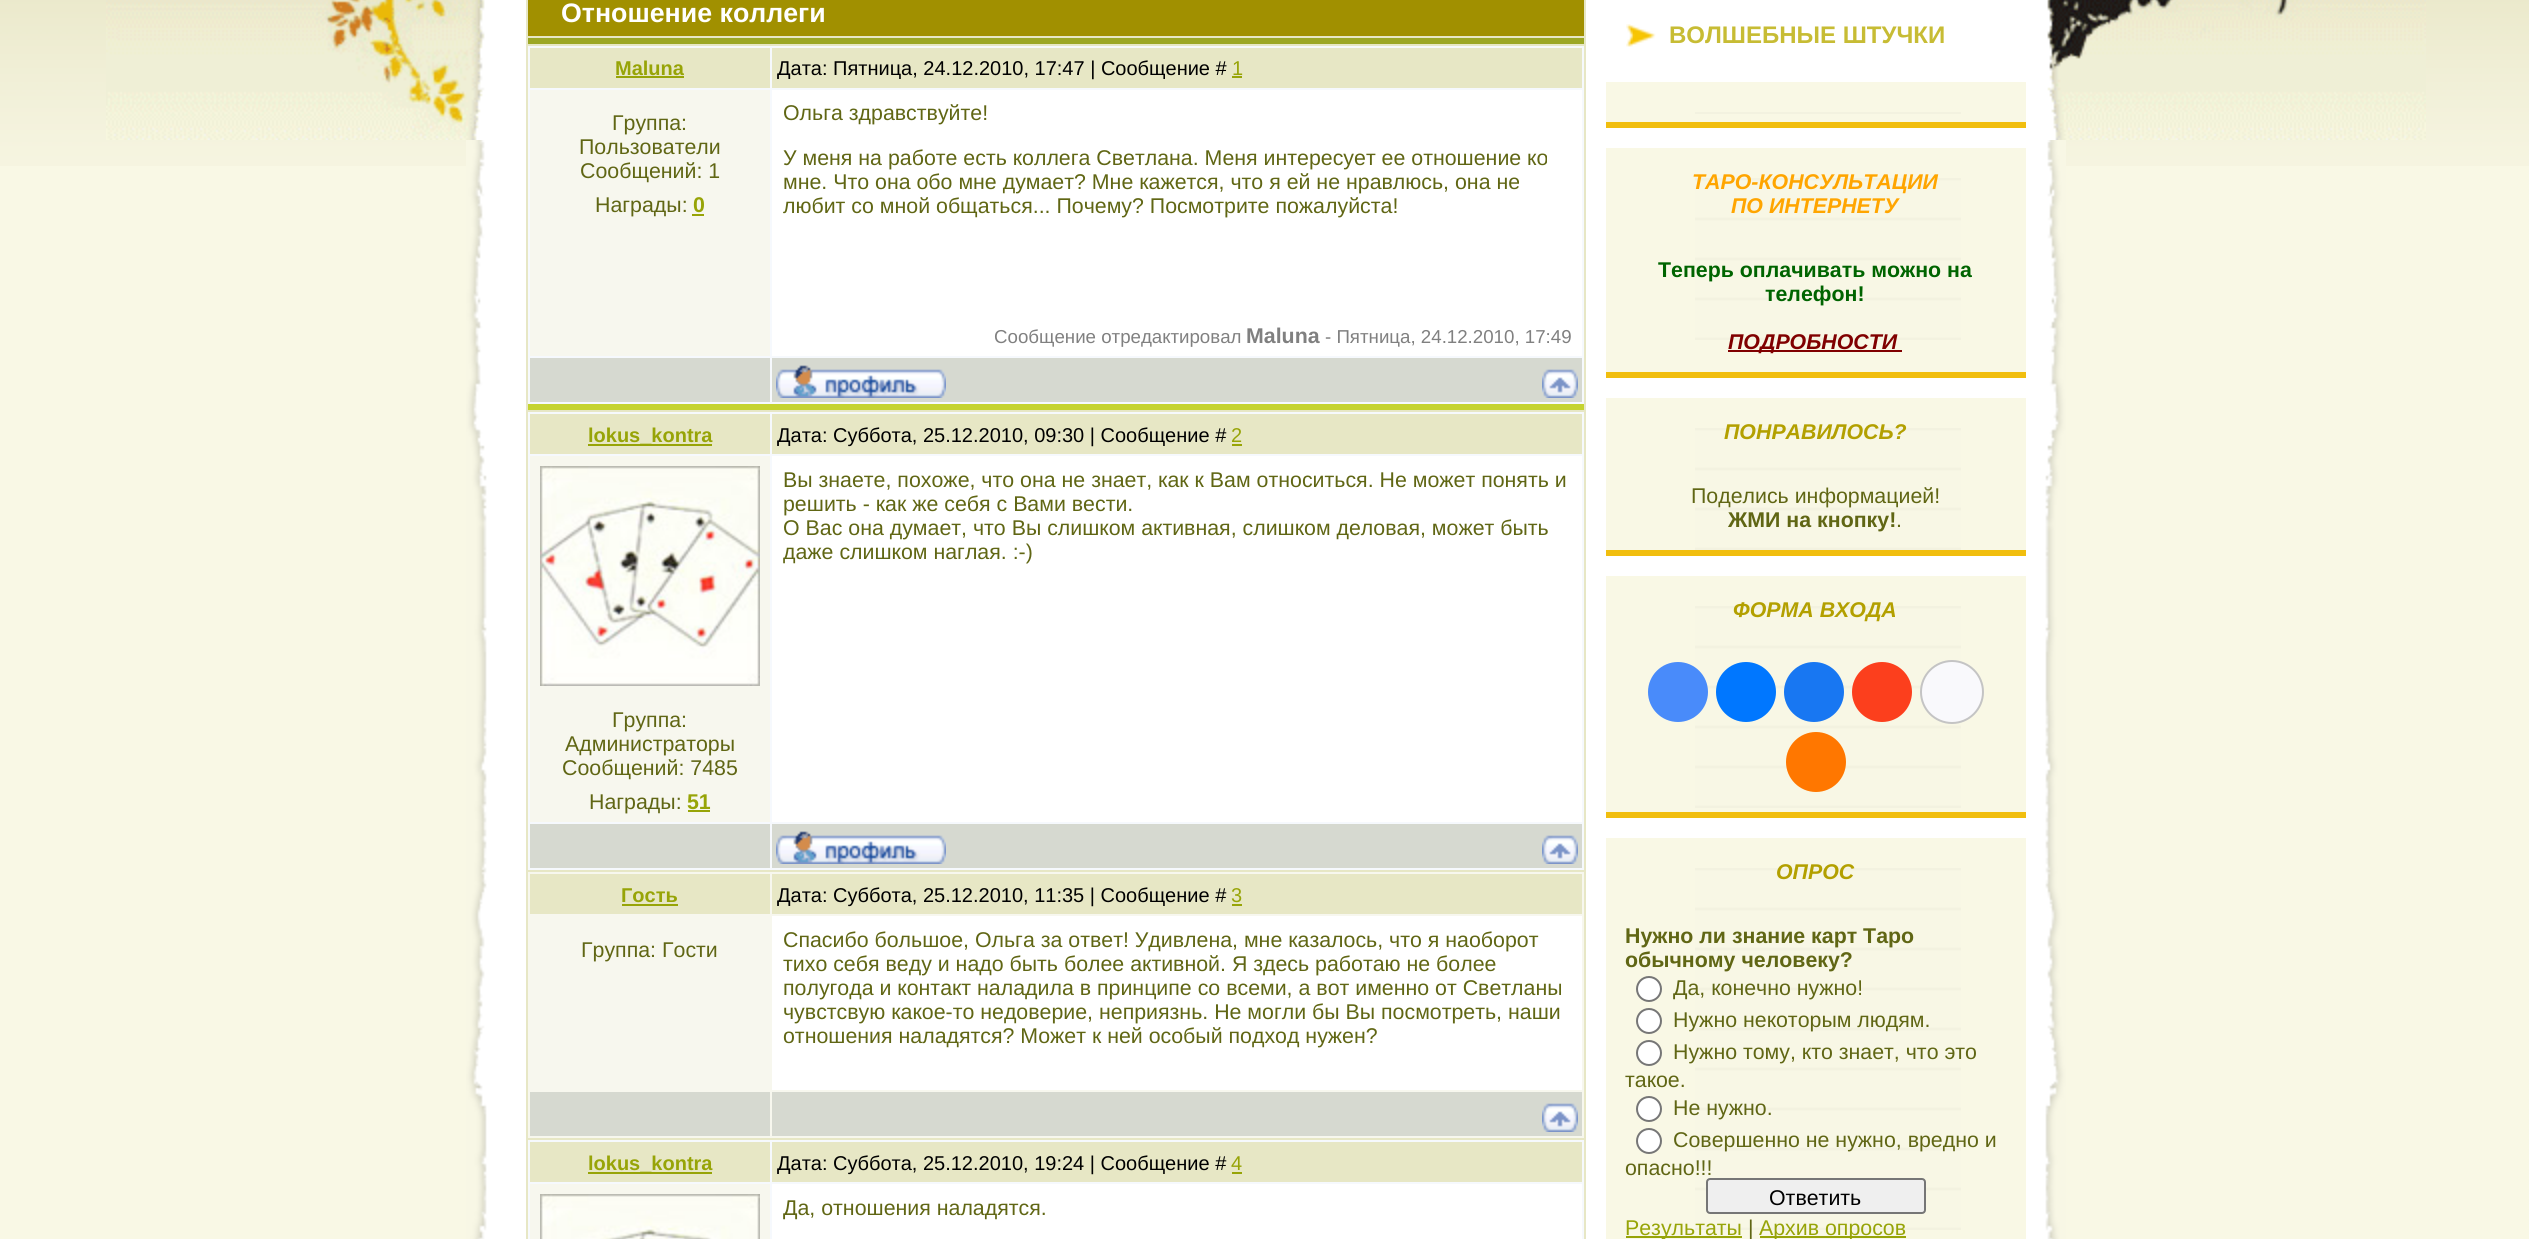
#include <cairo.h>
#include <math.h>
#include <stddef.h>


static void round_rect(cairo_t *cr, double x, double y, double w, double h, double r) {
    cairo_new_sub_path(cr);
    cairo_arc(cr, x + w - r, y + h - r, r, 0, M_PI / 2);
    cairo_arc(cr, x + r, y + h - r, r, M_PI / 2, M_PI);
    cairo_arc(cr, x + r, y + r, r, M_PI, 1.5 * M_PI);
    cairo_arc(cr, x + w - r, y + r, r, 1.5 * M_PI, 2 * M_PI);
    cairo_close_path(cr);
}

static void picture(cairo_t *cr, const char *path, double x, double y, double w, double h) {
    cairo_surface_t *image = cairo_image_surface_create_from_png(path);
    cairo_save(cr);
    cairo_set_source_surface(cr, image, x, y);
    cairo_rectangle(cr, x, y, w, h);
    cairo_fill(cr);
    cairo_restore(cr);
    cairo_surface_destroy(image);
}

int main(void) {
    cairo_surface_t *surface = cairo_image_surface_create(CAIRO_FORMAT_RGB24, 2529, 1239);
    cairo_t *cr = cairo_create(surface);
    cairo_font_options_t *options = cairo_font_options_create();
    cairo_font_options_set_hint_metrics(options, CAIRO_HINT_METRICS_OFF);
    cairo_font_options_set_hint_style(options, CAIRO_HINT_STYLE_NONE);
    cairo_set_font_options(cr, options);
    cairo_set_miter_limit(cr, 4);
    cairo_set_source_rgb(cr, 0.973, 0.969, 0.898);
    cairo_paint(cr);
    picture(cr, "img1.png", 0, 0, 2529, 166);
    picture(cr, "img2.png", 466, 140, 1600, 1099);
    picture(cr, "img3.png", 106, 0, 2320, 140);
    cairo_set_source_rgb(cr, 0.906, 0.906, 0.773);
    cairo_rectangle(cr, 526, 0, 1060, 1239);
    cairo_fill(cr);
    cairo_set_source_rgb(cr, 0.631, 0.565, 0);
    cairo_rectangle(cr, 528, 0, 1056, 36);
    cairo_fill(cr);
    cairo_select_font_face(cr, "Liberation Sans", CAIRO_FONT_SLANT_NORMAL, CAIRO_FONT_WEIGHT_BOLD);
    cairo_set_font_size(cr, 26.75);
    cairo_set_source_rgb(cr, 1, 1, 1);
    cairo_move_to(cr, 561, 22);
    cairo_show_text(cr, "Отношение коллеги");
    cairo_set_source_rgb(cr, 0.612, 0.655, 0.145);
    cairo_rectangle(cr, 528, 38, 1056, 6);
    cairo_fill(cr);
    cairo_set_source_rgb(cr, 0.961, 0.976, 0.992);
    cairo_rectangle(cr, 528, 46, 1056, 358);
    cairo_fill(cr);
    cairo_set_source_rgb(cr, 0.773, 0.827, 0.184);
    cairo_rectangle(cr, 528, 404, 1056, 6);
    cairo_fill(cr);
    cairo_set_source_rgb(cr, 0.906, 0.906, 0.773);
    cairo_rectangle(cr, 530, 48, 240, 40);
    cairo_fill(cr);
    cairo_set_font_size(cr, 20);
    cairo_set_source_rgb(cr, 0.592, 0.643, 0.031);
    cairo_move_to(cr, 615, 75);
    cairo_show_text(cr, "Maluna");
    cairo_rectangle(cr, 616, 76, 68, 2);
    cairo_fill(cr);
    cairo_set_source_rgb(cr, 0.906, 0.906, 0.773);
    cairo_rectangle(cr, 772, 48, 810, 40);
    cairo_fill(cr);
    cairo_select_font_face(cr, "Liberation Sans", CAIRO_FONT_SLANT_NORMAL, CAIRO_FONT_WEIGHT_NORMAL);
    cairo_set_source_rgb(cr, 0, 0, 0);
    cairo_move_to(cr, 777, 75);
    cairo_show_text(cr, "Дата: Пятница, 24.12.2010, 17:47 | Сообщение #");
    cairo_set_source_rgb(cr, 0.592, 0.643, 0.031);
    cairo_move_to(cr, 1232, 75);
    cairo_show_text(cr, "1");
    cairo_rectangle(cr, 1232, 76, 10, 2);
    cairo_fill(cr);
    cairo_set_source_rgb(cr, 0.965, 0.965, 0.933);
    cairo_rectangle(cr, 530, 90, 240, 266);
    cairo_fill(cr);
    cairo_set_font_size(cr, 21.35);
    cairo_set_source_rgb(cr, 0.376, 0.4, 0.082);
    cairo_move_to(cr, 612, 130);
    cairo_show_text(cr, "Группа:");
    cairo_move_to(cr, 579, 154);
    cairo_show_text(cr, "Пользователи");
    cairo_move_to(cr, 580, 178);
    cairo_show_text(cr, "Сообщений: 1");
    cairo_move_to(cr, 595, 212);
    cairo_show_text(cr, "Награды:");
    cairo_select_font_face(cr, "Liberation Sans", CAIRO_FONT_SLANT_NORMAL, CAIRO_FONT_WEIGHT_BOLD);
    cairo_set_source_rgb(cr, 0.592, 0.643, 0.031);
    cairo_move_to(cr, 693, 212);
    cairo_show_text(cr, "0");
    cairo_rectangle(cr, 692, 214, 12, 2);
    cairo_fill(cr);
    cairo_set_source_rgb(cr, 1, 1, 1);
    cairo_rectangle(cr, 772, 90, 810, 266);
    cairo_fill(cr);
    cairo_select_font_face(cr, "Liberation Sans", CAIRO_FONT_SLANT_NORMAL, CAIRO_FONT_WEIGHT_NORMAL);
    cairo_set_source_rgb(cr, 0.376, 0.4, 0.082);
    cairo_move_to(cr, 783, 120);
    cairo_show_text(cr, "Ольга здравствуйте!");
    cairo_move_to(cr, 783, 165);
    cairo_show_text(cr, "У меня на работе есть коллега Светлана. Меня интересует ее отношение ко");
    cairo_move_to(cr, 783, 189);
    cairo_show_text(cr, "мне. Что она обо мне думает? Мне кажется, что я ей не нравлюсь, она не");
    cairo_move_to(cr, 783, 213);
    cairo_show_text(cr, "любит со мной общаться... Почему? Посмотрите пожалуйста!");
    cairo_set_font_size(cr, 18.7);
    cairo_set_source_rgb(cr, 0.502, 0.502, 0.502);
    cairo_move_to(cr, 994, 343);
    cairo_show_text(cr, "Сообщение отредактировал");
    cairo_select_font_face(cr, "Liberation Sans", CAIRO_FONT_SLANT_NORMAL, CAIRO_FONT_WEIGHT_BOLD);
    cairo_set_font_size(cr, 21.35);
    cairo_move_to(cr, 1246, 343);
    cairo_show_text(cr, "Maluna");
    cairo_select_font_face(cr, "Liberation Sans", CAIRO_FONT_SLANT_NORMAL, CAIRO_FONT_WEIGHT_NORMAL);
    cairo_set_font_size(cr, 18.7);
    cairo_move_to(cr, 1325, 343);
    cairo_show_text(cr, "- Пятница, 24.12.2010, 17:49");
    cairo_set_source_rgb(cr, 0.839, 0.851, 0.816);
    cairo_rectangle(cr, 530, 358, 240, 44);
    cairo_fill(cr);
    cairo_rectangle(cr, 772, 358, 810, 44);
    cairo_fill(cr);
    picture(cr, "img4.png", 776, 365, 170, 33);
    picture(cr, "img5.png", 1542, 369, 36, 29);
    cairo_set_source_rgb(cr, 0.961, 0.976, 0.992);
    cairo_rectangle(cr, 528, 412, 1056, 458);
    cairo_fill(cr);
    cairo_set_source_rgb(cr, 0.906, 0.906, 0.773);
    cairo_rectangle(cr, 530, 414, 240, 40);
    cairo_fill(cr);
    cairo_set_source_rgb(cr, 0.592, 0.643, 0.031);
    cairo_rectangle(cr, 588, 444, 124, 2);
    cairo_fill(cr);
    cairo_select_font_face(cr, "Liberation Sans", CAIRO_FONT_SLANT_NORMAL, CAIRO_FONT_WEIGHT_BOLD);
    cairo_set_font_size(cr, 20);
    cairo_move_to(cr, 588, 442);
    cairo_show_text(cr, "lokus_kontra");
    cairo_set_source_rgb(cr, 0.906, 0.906, 0.773);
    cairo_rectangle(cr, 772, 414, 810, 40);
    cairo_fill(cr);
    cairo_select_font_face(cr, "Liberation Sans", CAIRO_FONT_SLANT_NORMAL, CAIRO_FONT_WEIGHT_NORMAL);
    cairo_set_source_rgb(cr, 0, 0, 0);
    cairo_move_to(cr, 777, 442);
    cairo_show_text(cr, "Дата: Суббота, 25.12.2010, 09:30 | Сообщение #");
    cairo_set_source_rgb(cr, 0.592, 0.643, 0.031);
    cairo_move_to(cr, 1231, 442);
    cairo_show_text(cr, "2");
    cairo_rectangle(cr, 1232, 444, 10, 2);
    cairo_fill(cr);
    cairo_set_source_rgb(cr, 1, 1, 1);
    cairo_rectangle(cr, 772, 456, 810, 366);
    cairo_fill(cr);
    cairo_set_font_size(cr, 21.35);
    cairo_set_source_rgb(cr, 0.376, 0.4, 0.082);
    cairo_move_to(cr, 783, 487);
    cairo_show_text(cr, "Вы знаете, похоже, что она не знает, как к Вам относиться. Не может понять и");
    cairo_move_to(cr, 783, 511);
    cairo_show_text(cr, "решить - как же себя с Вами вести.");
    cairo_move_to(cr, 783, 535);
    cairo_show_text(cr, "О Вас она думает, что Вы слишком активная, слишком деловая, может быть");
    cairo_move_to(cr, 783, 559);
    cairo_show_text(cr, "даже слишком наглая. :-)");
    cairo_set_source_rgb(cr, 0.965, 0.965, 0.933);
    cairo_rectangle(cr, 530, 456, 240, 366);
    cairo_fill(cr);
    picture(cr, "img6.png", 540, 466, 220, 220);
    cairo_set_source_rgb(cr, 0.376, 0.4, 0.082);
    cairo_move_to(cr, 612, 727);
    cairo_show_text(cr, "Группа:");
    cairo_move_to(cr, 565, 751);
    cairo_show_text(cr, "Администраторы");
    cairo_move_to(cr, 562, 775);
    cairo_show_text(cr, "Сообщений: 7485");
    cairo_move_to(cr, 589, 809);
    cairo_show_text(cr, "Награды:");
    cairo_select_font_face(cr, "Liberation Sans", CAIRO_FONT_SLANT_NORMAL, CAIRO_FONT_WEIGHT_BOLD);
    cairo_set_source_rgb(cr, 0.592, 0.643, 0.031);
    cairo_move_to(cr, 687, 809);
    cairo_show_text(cr, "51");
    cairo_rectangle(cr, 688, 810, 22, 2);
    cairo_fill(cr);
    cairo_set_source_rgb(cr, 0.839, 0.851, 0.816);
    cairo_rectangle(cr, 530, 824, 240, 44);
    cairo_fill(cr);
    cairo_rectangle(cr, 772, 824, 810, 44);
    cairo_fill(cr);
    picture(cr, "img4.png", 776, 831, 170, 33);
    picture(cr, "img5.png", 1542, 835, 36, 29);
    cairo_set_source_rgb(cr, 0.965, 0.965, 0.933);
    cairo_rectangle(cr, 528, 872, 1056, 266);
    cairo_fill(cr);
    cairo_set_source_rgb(cr, 0.906, 0.906, 0.773);
    cairo_rectangle(cr, 530, 874, 240, 40);
    cairo_fill(cr);
    cairo_set_font_size(cr, 20);
    cairo_set_source_rgb(cr, 0.592, 0.643, 0.031);
    cairo_move_to(cr, 621, 902);
    cairo_show_text(cr, "Гость");
    cairo_rectangle(cr, 622, 904, 56, 2);
    cairo_fill(cr);
    cairo_set_source_rgb(cr, 0.906, 0.906, 0.773);
    cairo_rectangle(cr, 772, 874, 810, 40);
    cairo_fill(cr);
    cairo_select_font_face(cr, "Liberation Sans", CAIRO_FONT_SLANT_NORMAL, CAIRO_FONT_WEIGHT_NORMAL);
    cairo_set_source_rgb(cr, 0, 0, 0);
    cairo_move_to(cr, 777, 902);
    cairo_show_text(cr, "Дата: Суббота, 25.12.2010, 11:35 | Сообщение #");
    cairo_set_source_rgb(cr, 0.592, 0.643, 0.031);
    cairo_move_to(cr, 1231, 902);
    cairo_show_text(cr, "3");
    cairo_rectangle(cr, 1232, 904, 10, 2);
    cairo_fill(cr);
    cairo_set_font_size(cr, 21.35);
    cairo_set_source_rgb(cr, 0.376, 0.4, 0.082);
    cairo_move_to(cr, 581, 957);
    cairo_show_text(cr, "Группа: Гости");
    cairo_set_source_rgb(cr, 1, 1, 1);
    cairo_rectangle(cr, 772, 916, 810, 174);
    cairo_fill(cr);
    cairo_set_source_rgb(cr, 0.376, 0.4, 0.082);
    cairo_move_to(cr, 783, 947);
    cairo_show_text(cr, "Спасибо большое, Ольга за ответ! Удивлена, мне казалось, что я наоборот");
    cairo_move_to(cr, 783, 971);
    cairo_show_text(cr, "тихо себя веду и надо быть более активной. Я здесь работаю не более");
    cairo_move_to(cr, 783, 995);
    cairo_show_text(cr, "полугода и контакт наладила в принципе со всеми, а вот именно от Светланы");
    cairo_move_to(cr, 783, 1019);
    cairo_show_text(cr, "чувстсвую какое-то недоверие, неприязнь. Не могли бы Вы посмотреть, наши");
    cairo_move_to(cr, 783, 1043);
    cairo_show_text(cr, "отношения наладятся? Может к ней особый подход нужен?");
    cairo_set_source_rgb(cr, 0.839, 0.851, 0.816);
    cairo_rectangle(cr, 530, 1092, 240, 44);
    cairo_fill(cr);
    cairo_rectangle(cr, 772, 1092, 810, 44);
    cairo_fill(cr);
    picture(cr, "img5.png", 1542, 1103, 36, 29);
    cairo_set_source_rgb(cr, 0.961, 0.976, 0.992);
    cairo_rectangle(cr, 528, 1140, 1056, 99);
    cairo_fill(cr);
    cairo_set_source_rgb(cr, 0.906, 0.906, 0.773);
    cairo_rectangle(cr, 530, 1142, 240, 40);
    cairo_fill(cr);
    cairo_set_source_rgb(cr, 0.592, 0.643, 0.031);
    cairo_rectangle(cr, 588, 1172, 124, 2);
    cairo_fill(cr);
    cairo_select_font_face(cr, "Liberation Sans", CAIRO_FONT_SLANT_NORMAL, CAIRO_FONT_WEIGHT_BOLD);
    cairo_set_font_size(cr, 20);
    cairo_move_to(cr, 588, 1170);
    cairo_show_text(cr, "lokus_kontra");
    cairo_set_source_rgb(cr, 0.906, 0.906, 0.773);
    cairo_rectangle(cr, 772, 1142, 810, 40);
    cairo_fill(cr);
    cairo_select_font_face(cr, "Liberation Sans", CAIRO_FONT_SLANT_NORMAL, CAIRO_FONT_WEIGHT_NORMAL);
    cairo_set_source_rgb(cr, 0, 0, 0);
    cairo_move_to(cr, 777, 1170);
    cairo_show_text(cr, "Дата: Суббота, 25.12.2010, 19:24 | Сообщение #");
    cairo_set_source_rgb(cr, 0.592, 0.643, 0.031);
    cairo_move_to(cr, 1231, 1170);
    cairo_show_text(cr, "4");
    cairo_rectangle(cr, 1232, 1172, 10, 2);
    cairo_fill(cr);
    cairo_set_source_rgb(cr, 0.965, 0.965, 0.933);
    cairo_rectangle(cr, 530, 1184, 240, 55);
    cairo_fill(cr);
    picture(cr, "img7.png", 540, 1194, 220, 45);
    cairo_set_source_rgb(cr, 1, 1, 1);
    cairo_rectangle(cr, 772, 1184, 810, 55);
    cairo_fill(cr);
    cairo_set_font_size(cr, 21.35);
    cairo_set_source_rgb(cr, 0.376, 0.4, 0.082);
    cairo_move_to(cr, 783, 1215);
    cairo_show_text(cr, "Да, отношения наладятся.");
    picture(cr, "img8.png", 1626, 24, 30, 23);
    cairo_select_font_face(cr, "Liberation Sans", CAIRO_FONT_SLANT_NORMAL, CAIRO_FONT_WEIGHT_BOLD);
    cairo_set_font_size(cr, 24);
    cairo_set_source_rgb(cr, 0.78, 0.737, 0.204);
    cairo_move_to(cr, 1669, 43);
    cairo_show_text(cr, "ВОЛШЕБНЫЕ ШТУЧКИ");
    cairo_set_source_rgb(cr, 0.973, 0.969, 0.898);
    cairo_rectangle(cr, 1606, 82, 420, 40);
    cairo_fill(cr);
    cairo_set_source_rgb(cr, 0.953, 0.949, 0.878);
    cairo_rectangle(cr, 1695, 112, 266, 2);
    cairo_fill(cr);
    cairo_set_source_rgb(cr, 0.945, 0.745, 0.055);
    cairo_rectangle(cr, 1606, 122, 420, 6);
    cairo_fill(cr);
    cairo_set_source_rgb(cr, 0.973, 0.969, 0.898);
    cairo_rectangle(cr, 1606, 148, 420, 224);
    cairo_fill(cr);
    picture(cr, "img9.png", 1695, 178, 266, 162);
    cairo_set_source_rgb(cr, 0.945, 0.745, 0.055);
    cairo_rectangle(cr, 1606, 372, 420, 6);
    cairo_fill(cr);
    cairo_select_font_face(cr, "Liberation Sans", CAIRO_FONT_SLANT_ITALIC, CAIRO_FONT_WEIGHT_BOLD);
    cairo_set_font_size(cr, 21.35);
    cairo_set_source_rgb(cr, 1, 0.647, 0);
    cairo_move_to(cr, 1692, 189);
    cairo_show_text(cr, "ТАРО-КОНСУЛЬТАЦИИ");
    cairo_move_to(cr, 1731, 213);
    cairo_show_text(cr, "ПО ИНТЕРНЕТУ");
    cairo_select_font_face(cr, "Liberation Sans", CAIRO_FONT_SLANT_NORMAL, CAIRO_FONT_WEIGHT_BOLD);
    cairo_set_source_rgb(cr, 0, 0.392, 0);
    cairo_move_to(cr, 1658, 277);
    cairo_show_text(cr, "Теперь оплачивать можно на");
    cairo_move_to(cr, 1765, 301);
    cairo_show_text(cr, "телефон!");
    cairo_set_source_rgb(cr, 0.502, 0, 0);
    cairo_rectangle(cr, 1728, 350, 174, 2);
    cairo_fill(cr);
    cairo_select_font_face(cr, "Liberation Sans", CAIRO_FONT_SLANT_ITALIC, CAIRO_FONT_WEIGHT_BOLD);
    cairo_move_to(cr, 1728, 349);
    cairo_show_text(cr, "ПОДРОБНОСТИ");
    cairo_set_source_rgb(cr, 0.973, 0.969, 0.898);
    cairo_rectangle(cr, 1606, 398, 420, 152);
    cairo_fill(cr);
    picture(cr, "img10.png", 1695, 428, 266, 122);
    cairo_set_source_rgb(cr, 0.945, 0.745, 0.055);
    cairo_rectangle(cr, 1606, 550, 420, 6);
    cairo_fill(cr);
    cairo_set_source_rgb(cr, 0.702, 0.627, 0);
    cairo_move_to(cr, 1724, 439);
    cairo_show_text(cr, "ПОНРАВИЛОСЬ?");
    cairo_select_font_face(cr, "Liberation Sans", CAIRO_FONT_SLANT_NORMAL, CAIRO_FONT_WEIGHT_NORMAL);
    cairo_set_source_rgb(cr, 0.376, 0.4, 0.082);
    cairo_move_to(cr, 1691, 503);
    cairo_show_text(cr, "Поделись информацией!");
    cairo_select_font_face(cr, "Liberation Sans", CAIRO_FONT_SLANT_NORMAL, CAIRO_FONT_WEIGHT_BOLD);
    cairo_move_to(cr, 1728, 527);
    cairo_show_text(cr, "ЖМИ на кнопку!");
    cairo_select_font_face(cr, "Liberation Sans", CAIRO_FONT_SLANT_NORMAL, CAIRO_FONT_WEIGHT_NORMAL);
    cairo_move_to(cr, 1896, 527);
    cairo_show_text(cr, ".");
    cairo_set_source_rgb(cr, 0.973, 0.969, 0.898);
    cairo_rectangle(cr, 1606, 576, 420, 236);
    cairo_fill(cr);
    picture(cr, "img11.png", 1695, 606, 266, 202);
    cairo_set_source_rgb(cr, 0.945, 0.745, 0.055);
    cairo_rectangle(cr, 1606, 812, 420, 6);
    cairo_fill(cr);
    cairo_select_font_face(cr, "Liberation Sans", CAIRO_FONT_SLANT_ITALIC, CAIRO_FONT_WEIGHT_BOLD);
    cairo_set_source_rgb(cr, 0.702, 0.627, 0);
    cairo_move_to(cr, 1733, 617);
    cairo_show_text(cr, "ФОРМА ВХОДА");
    cairo_set_source_rgb(cr, 0.286, 0.545, 0.98);
    cairo_new_path(cr);
    cairo_arc(cr, 1678, 692, 30, 0, 2 * M_PI);
    cairo_fill(cr);
    cairo_set_source_rgb(cr, 0, 0.467, 1);
    cairo_arc(cr, 1746, 692, 30, 0, 2 * M_PI);
    cairo_fill(cr);
    cairo_set_source_rgb(cr, 0.094, 0.467, 0.949);
    cairo_arc(cr, 1814, 692, 30, 0, 2 * M_PI);
    cairo_fill(cr);
    cairo_set_source_rgb(cr, 0.988, 0.247, 0.114);
    cairo_arc(cr, 1882, 692, 30, 0, 2 * M_PI);
    cairo_fill(cr);
    cairo_set_source_rgb(cr, 0.973, 0.973, 0.988);
    cairo_arc(cr, 1952, 692, 31, 0, 2 * M_PI);
    cairo_fill_preserve(cr);
    cairo_set_source_rgb(cr, 0.769, 0.769, 0.769);
    cairo_stroke(cr);
    cairo_set_source_rgb(cr, 1, 0.467, 0);
    cairo_arc(cr, 1816, 762, 30, 0, 2 * M_PI);
    cairo_fill(cr);
    cairo_set_source_rgb(cr, 0.973, 0.969, 0.898);
    cairo_rectangle(cr, 1606, 838, 420, 401);
    cairo_fill(cr);
    picture(cr, "img12.png", 1695, 868, 266, 362);
    cairo_set_source_rgb(cr, 0.702, 0.627, 0);
    cairo_move_to(cr, 1776, 879);
    cairo_show_text(cr, "ОПРОС");
    cairo_select_font_face(cr, "Liberation Sans", CAIRO_FONT_SLANT_NORMAL, CAIRO_FONT_WEIGHT_BOLD);
    cairo_set_source_rgb(cr, 0.376, 0.4, 0.082);
    cairo_move_to(cr, 1625, 943);
    cairo_show_text(cr, "Нужно ли знание карт Таро");
    cairo_move_to(cr, 1625, 967);
    cairo_show_text(cr, "обычному человеку?");
    cairo_set_source_rgb(cr, 1, 1, 1);
    cairo_new_path(cr);
    cairo_arc(cr, 1649, 989, 12, 0, 2 * M_PI);
    cairo_fill_preserve(cr);
    cairo_set_source_rgb(cr, 0.463, 0.463, 0.463);
    cairo_stroke(cr);
    cairo_select_font_face(cr, "Liberation Sans", CAIRO_FONT_SLANT_NORMAL, CAIRO_FONT_WEIGHT_NORMAL);
    cairo_set_source_rgb(cr, 0.376, 0.4, 0.082);
    cairo_move_to(cr, 1673, 995);
    cairo_show_text(cr, "Да, конечно нужно!");
    cairo_set_source_rgb(cr, 1, 1, 1);
    cairo_new_path(cr);
    cairo_arc(cr, 1649, 1021, 12, 0, 2 * M_PI);
    cairo_fill_preserve(cr);
    cairo_set_source_rgb(cr, 0.463, 0.463, 0.463);
    cairo_stroke(cr);
    cairo_set_source_rgb(cr, 0.376, 0.4, 0.082);
    cairo_move_to(cr, 1673, 1027);
    cairo_show_text(cr, "Нужно некоторым людям.");
    cairo_set_source_rgb(cr, 1, 1, 1);
    cairo_new_path(cr);
    cairo_arc(cr, 1649, 1053, 12, 0, 2 * M_PI);
    cairo_fill_preserve(cr);
    cairo_set_source_rgb(cr, 0.463, 0.463, 0.463);
    cairo_stroke(cr);
    cairo_set_source_rgb(cr, 0.376, 0.4, 0.082);
    cairo_move_to(cr, 1673, 1059);
    cairo_show_text(cr, "Нужно тому, кто знает, что это");
    cairo_move_to(cr, 1625, 1087);
    cairo_show_text(cr, "такое.");
    cairo_set_source_rgb(cr, 1, 1, 1);
    cairo_new_path(cr);
    cairo_arc(cr, 1649, 1109, 12, 0, 2 * M_PI);
    cairo_fill_preserve(cr);
    cairo_set_source_rgb(cr, 0.463, 0.463, 0.463);
    cairo_stroke(cr);
    cairo_set_source_rgb(cr, 0.376, 0.4, 0.082);
    cairo_move_to(cr, 1673, 1115);
    cairo_show_text(cr, "Не нужно.");
    cairo_set_source_rgb(cr, 1, 1, 1);
    cairo_new_path(cr);
    cairo_arc(cr, 1649, 1141, 12, 0, 2 * M_PI);
    cairo_fill_preserve(cr);
    cairo_set_source_rgb(cr, 0.463, 0.463, 0.463);
    cairo_stroke(cr);
    cairo_set_source_rgb(cr, 0.376, 0.4, 0.082);
    cairo_move_to(cr, 1673, 1147);
    cairo_show_text(cr, "Совершенно не нужно, вредно и");
    cairo_move_to(cr, 1625, 1175);
    cairo_show_text(cr, "опасно!!!");
    cairo_set_source_rgb(cr, 0.937, 0.937, 0.937);
    round_rect(cr, 1707, 1179, 218, 34, 3);
    cairo_fill_preserve(cr);
    cairo_set_source_rgb(cr, 0.463, 0.463, 0.463);
    cairo_stroke(cr);
    cairo_set_source_rgb(cr, 0, 0, 0);
    cairo_move_to(cr, 1769, 1205);
    cairo_show_text(cr, "Ответить");
    cairo_set_source_rgb(cr, 0.592, 0.643, 0.031);
    cairo_rectangle(cr, 1626, 1236, 116, 2);
    cairo_fill(cr);
    cairo_move_to(cr, 1625, 1235);
    cairo_show_text(cr, "Результаты");
    cairo_set_source_rgb(cr, 0.376, 0.4, 0.082);
    cairo_move_to(cr, 1748, 1235);
    cairo_show_text(cr, "|");
    cairo_set_source_rgb(cr, 0.592, 0.643, 0.031);
    cairo_rectangle(cr, 1760, 1236, 146, 2);
    cairo_fill(cr);
    cairo_move_to(cr, 1759, 1235);
    cairo_show_text(cr, "Архив опросов");
    cairo_surface_write_to_png(surface, "page.png");
    cairo_font_options_destroy(options);
    cairo_destroy(cr);
    cairo_surface_destroy(surface);
    return 0;
}
